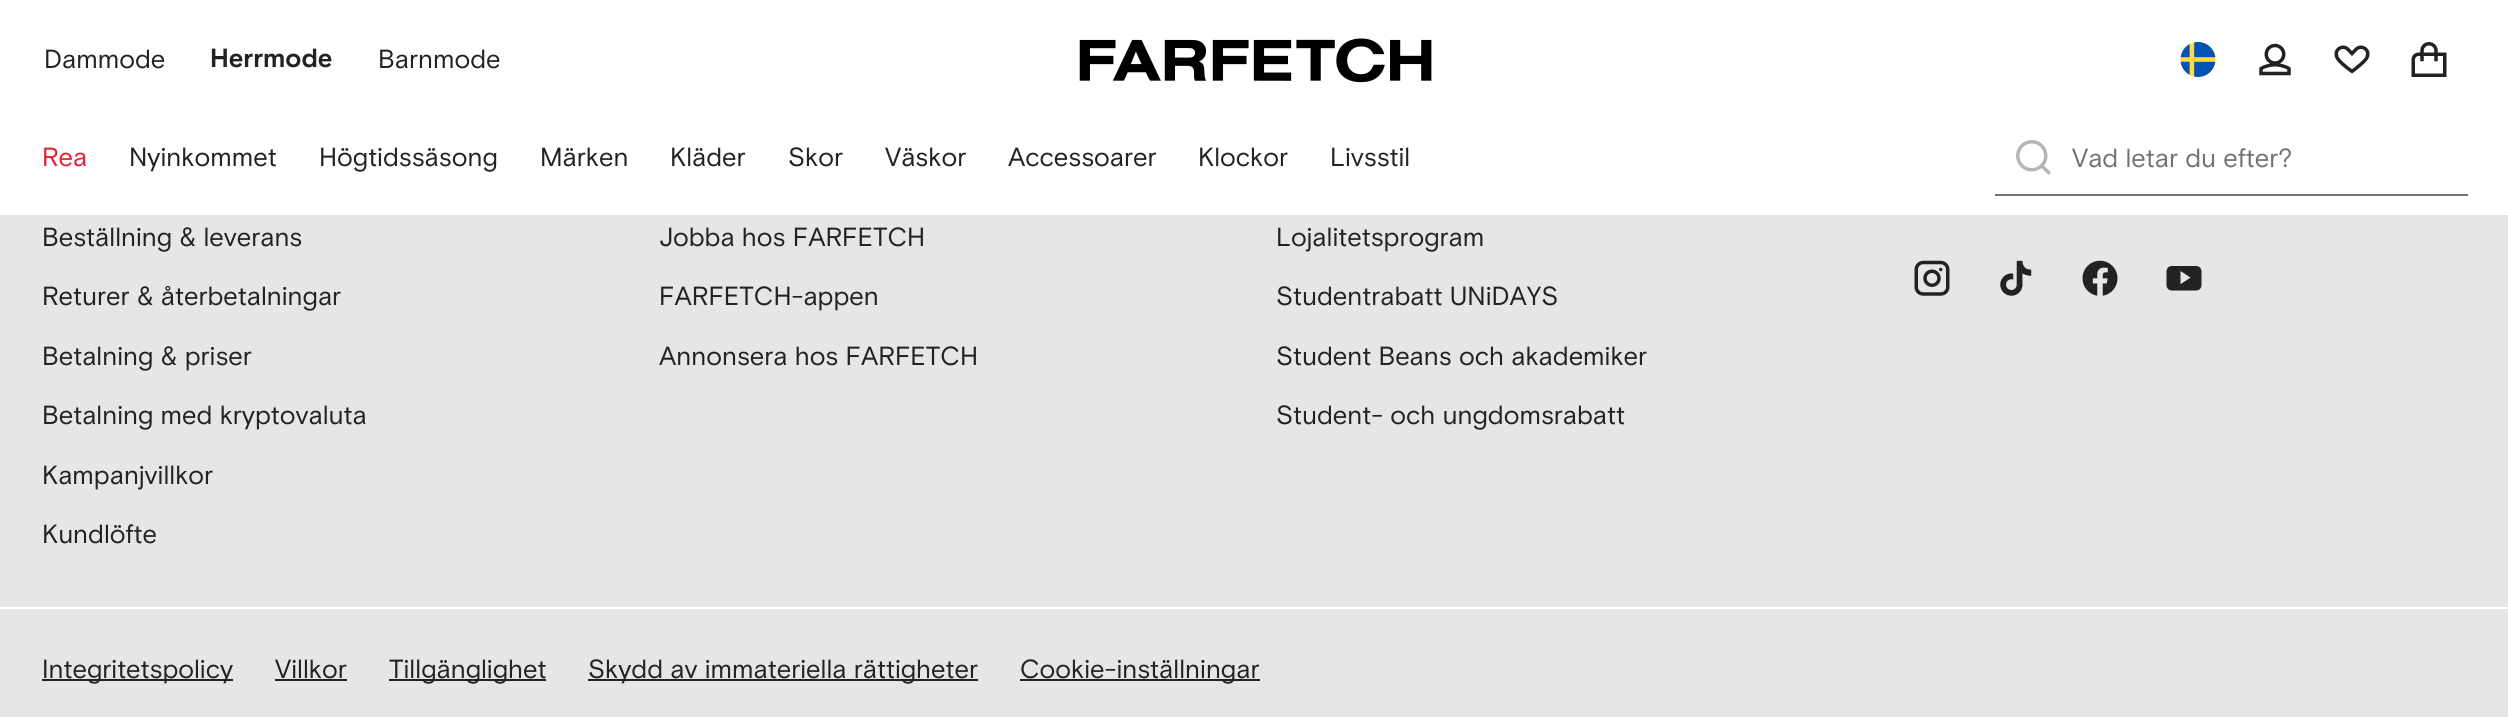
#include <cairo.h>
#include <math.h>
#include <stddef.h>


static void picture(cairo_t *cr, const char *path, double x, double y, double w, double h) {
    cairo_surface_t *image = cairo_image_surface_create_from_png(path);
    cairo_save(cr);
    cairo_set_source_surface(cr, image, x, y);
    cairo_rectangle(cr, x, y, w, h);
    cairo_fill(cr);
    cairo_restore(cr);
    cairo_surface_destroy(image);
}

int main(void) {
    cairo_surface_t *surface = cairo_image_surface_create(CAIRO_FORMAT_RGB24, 2508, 717);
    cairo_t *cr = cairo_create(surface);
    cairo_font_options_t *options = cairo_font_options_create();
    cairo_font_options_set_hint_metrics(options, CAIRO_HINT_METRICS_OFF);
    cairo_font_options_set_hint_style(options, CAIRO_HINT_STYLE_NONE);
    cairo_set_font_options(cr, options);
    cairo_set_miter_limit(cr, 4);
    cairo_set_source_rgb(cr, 0.902, 0.902, 0.902);
    cairo_paint(cr);
    cairo_set_source_rgb(cr, 1, 1, 1);
    cairo_rectangle(cr, 0, 0, 2508, 215);
    cairo_fill(cr);
    cairo_select_font_face(cr, "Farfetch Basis", CAIRO_FONT_SLANT_NORMAL, CAIRO_FONT_WEIGHT_NORMAL);
    cairo_set_font_size(cr, 26.25);
    cairo_set_source_rgb(cr, 0.133, 0.133, 0.133);
    cairo_move_to(cr, 44, 68);
    cairo_show_text(cr, "Dammode");
    cairo_select_font_face(cr, "Farfetch Basis", CAIRO_FONT_SLANT_NORMAL, CAIRO_FONT_WEIGHT_BOLD);
    cairo_move_to(cr, 210, 67);
    cairo_show_text(cr, "Herrmode");
    cairo_select_font_face(cr, "Farfetch Basis", CAIRO_FONT_SLANT_NORMAL, CAIRO_FONT_WEIGHT_NORMAL);
    cairo_move_to(cr, 378, 68);
    cairo_show_text(cr, "Barnmode");
    picture(cr, "img1.png", 1079, 38, 353, 45);
    picture(cr, "img2.png", 2180, 42, 36, 35);
    picture(cr, "img3.png", 2259, 43, 32, 33);
    picture(cr, "img4.png", 2334, 45, 36, 29);
    picture(cr, "img5.png", 2411, 42, 36, 35);
    cairo_set_source_rgb(cr, 0.906, 0.114, 0.204);
    cairo_move_to(cr, 42, 166);
    cairo_show_text(cr, "Rea");
    cairo_set_source_rgb(cr, 0.133, 0.133, 0.133);
    cairo_move_to(cr, 129, 166);
    cairo_show_text(cr, "Nyinkommet");
    cairo_move_to(cr, 319, 166);
    cairo_show_text(cr, "Högtidssäsong");
    cairo_move_to(cr, 540, 166);
    cairo_show_text(cr, "Märken");
    cairo_move_to(cr, 670, 166);
    cairo_show_text(cr, "Kläder");
    cairo_move_to(cr, 788, 166);
    cairo_show_text(cr, "Skor");
    cairo_move_to(cr, 885, 166);
    cairo_show_text(cr, "Väskor");
    cairo_move_to(cr, 1008, 166);
    cairo_show_text(cr, "Accessoarer");
    cairo_move_to(cr, 1198, 166);
    cairo_show_text(cr, "Klockor");
    cairo_move_to(cr, 1330, 166);
    cairo_show_text(cr, "Livsstil");
    cairo_set_source_rgb(cr, 0.447, 0.447, 0.447);
    cairo_rectangle(cr, 1995, 194, 473, 2);
    cairo_fill(cr);
    picture(cr, "img6.png", 2016, 140, 35, 35);
    cairo_move_to(cr, 2072, 167);
    cairo_show_text(cr, "Vad letar du efter?");
    cairo_set_source_rgb(cr, 0.133, 0.133, 0.133);
    cairo_move_to(cr, 42, 246);
    cairo_show_text(cr, "Beställning & leverans");
    cairo_move_to(cr, 42, 305);
    cairo_show_text(cr, "Returer & återbetalningar");
    cairo_move_to(cr, 42, 365);
    cairo_show_text(cr, "Betalning & priser");
    cairo_move_to(cr, 42, 424);
    cairo_show_text(cr, "Betalning med kryptovaluta");
    cairo_move_to(cr, 42, 484);
    cairo_show_text(cr, "Kampanjvillkor");
    cairo_move_to(cr, 42, 543);
    cairo_show_text(cr, "Kundlöfte");
    cairo_move_to(cr, 659, 246);
    cairo_show_text(cr, "Jobba hos FARFETCH");
    cairo_move_to(cr, 659, 305);
    cairo_show_text(cr, "FARFETCH-appen");
    cairo_move_to(cr, 659, 365);
    cairo_show_text(cr, "Annonsera hos FARFETCH");
    cairo_move_to(cr, 1276, 246);
    cairo_show_text(cr, "Lojalitetsprogram");
    cairo_move_to(cr, 1276, 305);
    cairo_show_text(cr, "Studentrabatt UNiDAYS");
    cairo_move_to(cr, 1276, 365);
    cairo_show_text(cr, "Student Beans och akademiker");
    cairo_move_to(cr, 1276, 424);
    cairo_show_text(cr, "Student- och ungdomsrabatt");
    picture(cr, "img7.png", 1914, 260, 36, 36);
    picture(cr, "img8.png", 2000, 260, 32, 36);
    picture(cr, "img9.png", 2082, 260, 36, 36);
    picture(cr, "img10.png", 2166, 266, 36, 25);
    cairo_set_source_rgb(cr, 1, 1, 1);
    cairo_rectangle(cr, 0, 607, 2508, 2);
    cairo_fill(cr);
    cairo_set_source_rgb(cr, 0.133, 0.133, 0.133);
    cairo_rectangle(cr, 42, 679, 191, 2);
    cairo_fill(cr);
    cairo_move_to(cr, 42, 678);
    cairo_show_text(cr, "Integritetspolicy");
    cairo_move_to(cr, 275, 678);
    cairo_show_text(cr, "Villkor");
    cairo_rectangle(cr, 275, 679, 72, 2);
    cairo_fill(cr);
    cairo_rectangle(cr, 389, 679, 157, 2);
    cairo_fill(cr);
    cairo_move_to(cr, 389, 678);
    cairo_show_text(cr, "Tillgänglighet");
    cairo_rectangle(cr, 588, 679, 390, 2);
    cairo_fill(cr);
    cairo_move_to(cr, 588, 678);
    cairo_show_text(cr, "Skydd av immateriella rättigheter");
    cairo_rectangle(cr, 1020, 679, 240, 2);
    cairo_fill(cr);
    cairo_move_to(cr, 1020, 678);
    cairo_show_text(cr, "Cookie-inställningar");
    cairo_surface_write_to_png(surface, "page.png");
    cairo_font_options_destroy(options);
    cairo_destroy(cr);
    cairo_surface_destroy(surface);
    return 0;
}
